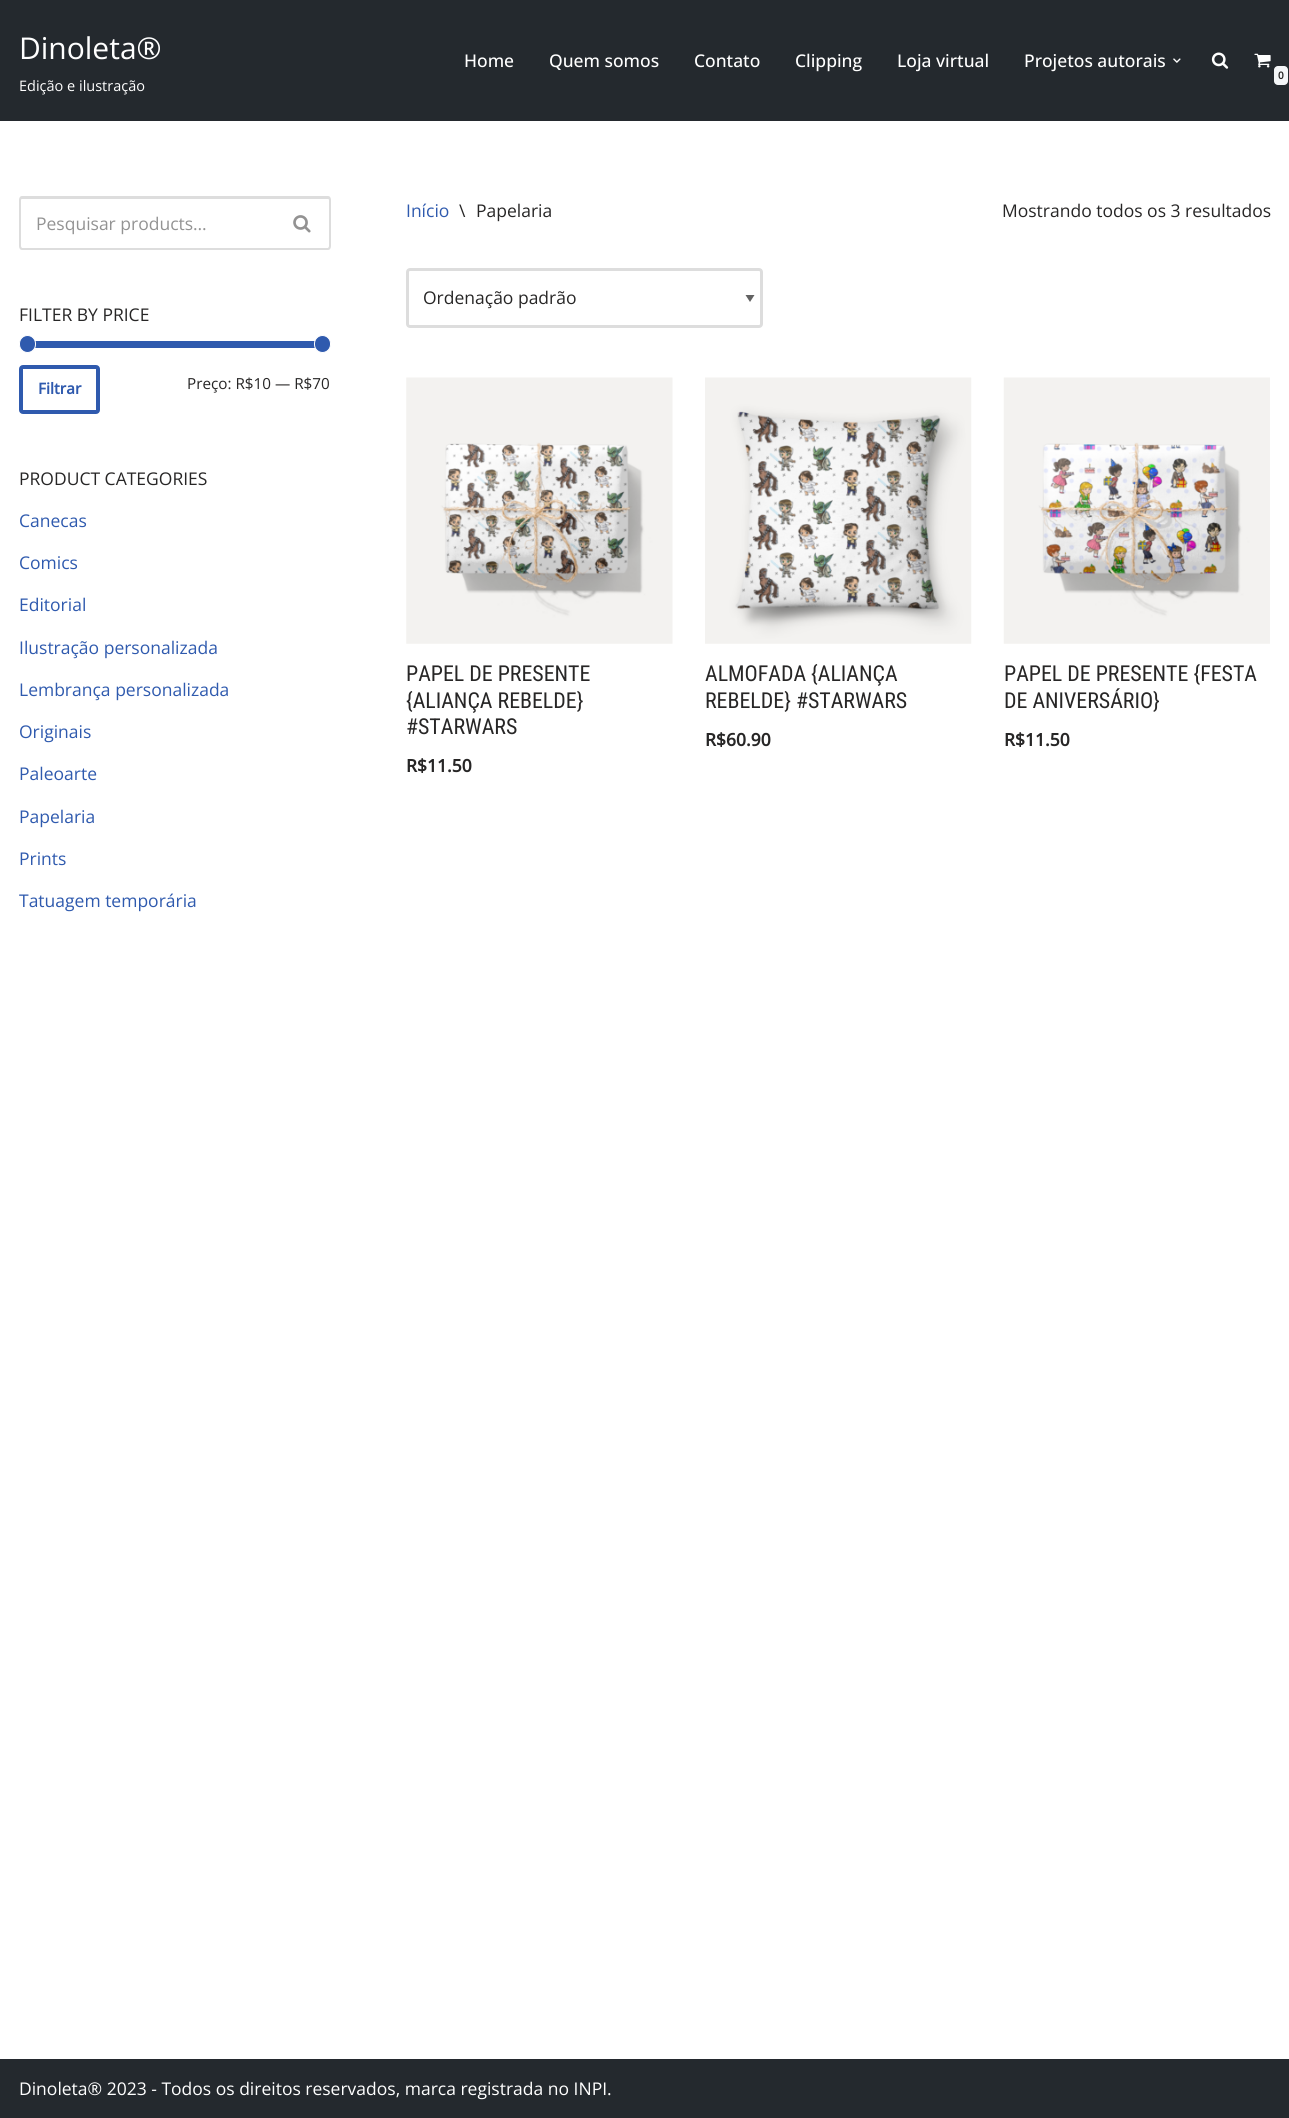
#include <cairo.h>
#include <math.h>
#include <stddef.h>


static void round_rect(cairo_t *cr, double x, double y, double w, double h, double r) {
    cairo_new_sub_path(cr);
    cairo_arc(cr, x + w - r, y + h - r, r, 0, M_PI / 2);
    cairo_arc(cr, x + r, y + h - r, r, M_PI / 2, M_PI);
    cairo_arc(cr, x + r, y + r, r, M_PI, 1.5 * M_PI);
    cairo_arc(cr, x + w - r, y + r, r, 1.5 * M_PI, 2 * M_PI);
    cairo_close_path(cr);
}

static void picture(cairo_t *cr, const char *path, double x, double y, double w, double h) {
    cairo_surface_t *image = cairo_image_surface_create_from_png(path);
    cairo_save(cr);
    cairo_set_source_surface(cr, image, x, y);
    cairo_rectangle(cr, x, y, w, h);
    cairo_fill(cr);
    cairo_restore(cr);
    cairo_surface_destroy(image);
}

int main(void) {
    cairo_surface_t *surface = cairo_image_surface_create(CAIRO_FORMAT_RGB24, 1289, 2118);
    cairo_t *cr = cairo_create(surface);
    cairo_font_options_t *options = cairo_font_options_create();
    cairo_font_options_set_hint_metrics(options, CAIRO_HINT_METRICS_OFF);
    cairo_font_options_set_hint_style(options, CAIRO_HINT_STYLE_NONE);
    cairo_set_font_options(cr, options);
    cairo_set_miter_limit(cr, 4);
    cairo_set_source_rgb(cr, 1, 1, 1);
    cairo_paint(cr);
    cairo_set_source_rgb(cr, 0.141, 0.161, 0.18);
    cairo_rectangle(cr, 0, 0, 1289, 121);
    cairo_fill(cr);
    cairo_select_font_face(cr, "Open Sans", CAIRO_FONT_SLANT_NORMAL, CAIRO_FONT_WEIGHT_NORMAL);
    cairo_set_font_size(cr, 30);
    cairo_set_source_rgb(cr, 1, 1, 1);
    cairo_move_to(cr, 19, 59);
    cairo_show_text(cr, "Dinoleta®");
    cairo_set_font_size(cr, 14.5);
    cairo_move_to(cr, 19, 91);
    cairo_show_text(cr, "Edição e ilustração");
    cairo_select_font_face(cr, "Open Sans Medium", CAIRO_FONT_SLANT_NORMAL, CAIRO_FONT_WEIGHT_NORMAL);
    cairo_set_font_size(cr, 17.5);
    cairo_move_to(cr, 464, 67);
    cairo_show_text(cr, "Home");
    cairo_move_to(cr, 549, 67);
    cairo_show_text(cr, "Quem somos");
    cairo_move_to(cr, 694, 67);
    cairo_show_text(cr, "Contato");
    cairo_move_to(cr, 795, 67);
    cairo_show_text(cr, "Clipping");
    cairo_move_to(cr, 897, 67);
    cairo_show_text(cr, "Loja virtual");
    cairo_move_to(cr, 1024, 67);
    cairo_show_text(cr, "Projetos autorais");
    picture(cr, "img1.png", 1173, 58, 8, 5);
    picture(cr, "img2.png", 1211, 52, 18, 17);
    picture(cr, "img3.png", 1254, 53, 17, 15);
    cairo_set_source_rgb(cr, 0.957, 0.961, 0.969);
    round_rect(cr, 1274, 66, 14, 19, 4);
    cairo_fill(cr);
    cairo_select_font_face(cr, "Open Sans", CAIRO_FONT_SLANT_NORMAL, CAIRO_FONT_WEIGHT_BOLD);
    cairo_set_font_size(cr, 10);
    cairo_set_source_rgb(cr, 0.153, 0.149, 0.149);
    cairo_move_to(cr, 1278, 79);
    cairo_show_text(cr, "0");
    cairo_set_source_rgb(cr, 0.867, 0.867, 0.867);
    cairo_set_fill_rule(cr, CAIRO_FILL_RULE_EVEN_ODD);
    cairo_new_path(cr);
    cairo_move_to(cr, 22, 196);
    cairo_line_to(cr, 275, 196);
    cairo_line_to(cr, 275, 250);
    cairo_line_to(cr, 22, 250);
    cairo_curve_to(cr, 20, 250, 19, 248, 19, 246);
    cairo_line_to(cr, 19, 200);
    cairo_curve_to(cr, 19, 198, 20, 196, 22, 196);
    cairo_close_path(cr);
    cairo_move_to(cr, 22, 199);
    cairo_line_to(cr, 275, 199);
    cairo_line_to(cr, 275, 248);
    cairo_line_to(cr, 22, 248);
    cairo_curve_to(cr, 22, 248, 21, 247, 21, 246);
    cairo_line_to(cr, 21, 200);
    cairo_curve_to(cr, 21, 199, 22, 199, 22, 199);
    cairo_close_path(cr);
    cairo_fill(cr);
    cairo_select_font_face(cr, "Open Sans", CAIRO_FONT_SLANT_NORMAL, CAIRO_FONT_WEIGHT_NORMAL);
    cairo_set_font_size(cr, 17.5);
    cairo_set_source_rgb(cr, 0.576, 0.576, 0.576);
    cairo_move_to(cr, 36, 230);
    cairo_show_text(cr, "Pesquisar products…");
    cairo_set_source_rgb(cr, 0.867, 0.867, 0.867);
    cairo_new_path(cr);
    cairo_move_to(cr, 275, 196);
    cairo_line_to(cr, 328, 196);
    cairo_curve_to(cr, 330, 196, 331, 198, 331, 200);
    cairo_line_to(cr, 331, 246);
    cairo_curve_to(cr, 331, 248, 330, 250, 328, 250);
    cairo_line_to(cr, 275, 250);
    cairo_close_path(cr);
    cairo_move_to(cr, 275, 199);
    cairo_line_to(cr, 328, 199);
    cairo_curve_to(cr, 328, 199, 329, 199, 329, 200);
    cairo_line_to(cr, 329, 246);
    cairo_curve_to(cr, 329, 247, 328, 248, 328, 248);
    cairo_line_to(cr, 275, 248);
    cairo_close_path(cr);
    cairo_fill(cr);
    picture(cr, "img4.png", 293, 215, 18, 18);
    cairo_set_source_rgb(cr, 0.153, 0.149, 0.149);
    cairo_move_to(cr, 19, 321);
    cairo_show_text(cr, "FILTER BY PRICE");
    cairo_set_source_rgb(cr, 0.184, 0.353, 0.682);
    cairo_rectangle(cr, 28, 341, 295, 7);
    cairo_fill(cr);
    round_rect(cr, 19.5, 335.5, 16, 17, 8);
    cairo_fill_preserve(cr);
    cairo_set_source_rgb(cr, 1, 1, 1);
    cairo_set_line_width(cr, 1);
    cairo_stroke(cr);
    cairo_set_source_rgb(cr, 0.184, 0.353, 0.682);
    round_rect(cr, 314.5, 335.5, 16, 17, 8);
    cairo_fill_preserve(cr);
    cairo_set_source_rgb(cr, 1, 1, 1);
    cairo_stroke(cr);
    round_rect(cr, 21, 367, 77, 45, 2);
    cairo_set_source_rgb(cr, 0.184, 0.353, 0.682);
    cairo_set_line_width(cr, 4);
    cairo_stroke(cr);
    cairo_select_font_face(cr, "Open Sans", CAIRO_FONT_SLANT_NORMAL, CAIRO_FONT_WEIGHT_BOLD);
    cairo_set_font_size(cr, 15.25);
    cairo_move_to(cr, 38, 394);
    cairo_show_text(cr, "Filtrar");
    cairo_select_font_face(cr, "Open Sans", CAIRO_FONT_SLANT_NORMAL, CAIRO_FONT_WEIGHT_NORMAL);
    cairo_set_source_rgb(cr, 0.153, 0.149, 0.149);
    cairo_move_to(cr, 187, 389);
    cairo_show_text(cr, "Preço: R$10 — R$70");
    cairo_set_font_size(cr, 17.5);
    cairo_move_to(cr, 19, 485);
    cairo_show_text(cr, "PRODUCT CATEGORIES");
    cairo_set_source_rgb(cr, 0.184, 0.353, 0.682);
    cairo_move_to(cr, 19, 527);
    cairo_show_text(cr, "Canecas");
    cairo_move_to(cr, 19, 569);
    cairo_show_text(cr, "Comics");
    cairo_move_to(cr, 19, 611);
    cairo_show_text(cr, "Editorial");
    cairo_move_to(cr, 19, 654);
    cairo_show_text(cr, "Ilustração personalizada");
    cairo_move_to(cr, 19, 696);
    cairo_show_text(cr, "Lembrança personalizada");
    cairo_move_to(cr, 19, 738);
    cairo_show_text(cr, "Originais");
    cairo_move_to(cr, 19, 780);
    cairo_show_text(cr, "Paleoarte");
    cairo_move_to(cr, 19, 823);
    cairo_show_text(cr, "Papelaria");
    cairo_move_to(cr, 19, 865);
    cairo_show_text(cr, "Prints");
    cairo_move_to(cr, 19, 907);
    cairo_show_text(cr, "Tatuagem temporária");
    cairo_move_to(cr, 406, 217);
    cairo_show_text(cr, "Início");
    cairo_set_source_rgb(cr, 0.153, 0.149, 0.149);
    cairo_move_to(cr, 459, 217);
    cairo_show_text(cr, "\\");
    cairo_move_to(cr, 476, 217);
    cairo_show_text(cr, "Papelaria");
    cairo_move_to(cr, 1002, 217);
    cairo_show_text(cr, "Mostrando todos os 3 resultados");
    cairo_set_source_rgb(cr, 0.384, 0.384, 0.384);
    cairo_set_fill_rule(cr, CAIRO_FILL_RULE_WINDING);
    cairo_new_path(cr);
    cairo_move_to(cr, 754.5, 295);
    cairo_line_to(cr, 750, 302);
    cairo_line_to(cr, 745.5, 295);
    cairo_close_path(cr);
    cairo_fill(cr);
    round_rect(cr, 407.5, 269.5, 354, 57, 2.5);
    cairo_set_source_rgb(cr, 0.867, 0.867, 0.867);
    cairo_set_line_width(cr, 3);
    cairo_stroke(cr);
    cairo_set_source_rgb(cr, 0.153, 0.149, 0.149);
    cairo_move_to(cr, 423, 304);
    cairo_show_text(cr, "Ordenação padrão");
    picture(cr, "img5.png", 406, 377, 267, 267);
    cairo_select_font_face(cr, "Roboto Condensed", CAIRO_FONT_SLANT_NORMAL, CAIRO_FONT_WEIGHT_NORMAL);
    cairo_set_font_size(cr, 21.9);
    cairo_move_to(cr, 406, 681);
    cairo_show_text(cr, "PAPEL DE PRESENTE");
    cairo_move_to(cr, 406, 708);
    cairo_show_text(cr, "{ALIANÇA REBELDE}");
    cairo_move_to(cr, 406, 734);
    cairo_show_text(cr, "#STARWARS");
    cairo_select_font_face(cr, "Open Sans", CAIRO_FONT_SLANT_NORMAL, CAIRO_FONT_WEIGHT_BOLD);
    cairo_set_font_size(cr, 17.5);
    cairo_move_to(cr, 406, 772);
    cairo_show_text(cr, "R$11.50");
    picture(cr, "img6.png", 705, 377, 267, 267);
    cairo_select_font_face(cr, "Roboto Condensed", CAIRO_FONT_SLANT_NORMAL, CAIRO_FONT_WEIGHT_NORMAL);
    cairo_set_font_size(cr, 21.9);
    cairo_move_to(cr, 705, 681);
    cairo_show_text(cr, "ALMOFADA {ALIANÇA");
    cairo_move_to(cr, 705, 708);
    cairo_show_text(cr, "REBELDE} #STARWARS");
    cairo_select_font_face(cr, "Open Sans", CAIRO_FONT_SLANT_NORMAL, CAIRO_FONT_WEIGHT_BOLD);
    cairo_set_font_size(cr, 17.5);
    cairo_move_to(cr, 705, 746);
    cairo_show_text(cr, "R$60.90");
    picture(cr, "img7.png", 1003, 377, 267, 267);
    cairo_select_font_face(cr, "Roboto Condensed", CAIRO_FONT_SLANT_NORMAL, CAIRO_FONT_WEIGHT_NORMAL);
    cairo_set_font_size(cr, 21.9);
    cairo_move_to(cr, 1004, 681);
    cairo_show_text(cr, "PAPEL DE PRESENTE {FESTA");
    cairo_move_to(cr, 1004, 708);
    cairo_show_text(cr, "DE ANIVERSÁRIO}");
    cairo_select_font_face(cr, "Open Sans", CAIRO_FONT_SLANT_NORMAL, CAIRO_FONT_WEIGHT_BOLD);
    cairo_set_font_size(cr, 17.5);
    cairo_move_to(cr, 1004, 746);
    cairo_show_text(cr, "R$11.50");
    cairo_set_source_rgb(cr, 0.141, 0.161, 0.18);
    cairo_rectangle(cr, 0, 2059, 1289, 59);
    cairo_fill(cr);
    cairo_select_font_face(cr, "Open Sans", CAIRO_FONT_SLANT_NORMAL, CAIRO_FONT_WEIGHT_NORMAL);
    cairo_set_source_rgb(cr, 1, 1, 1);
    cairo_move_to(cr, 19, 2095);
    cairo_show_text(cr, "Dinoleta® 2023 - Todos os direitos reservados, marca registrada no INPI.");
    cairo_surface_write_to_png(surface, "page.png");
    cairo_font_options_destroy(options);
    cairo_destroy(cr);
    cairo_surface_destroy(surface);
    return 0;
}
